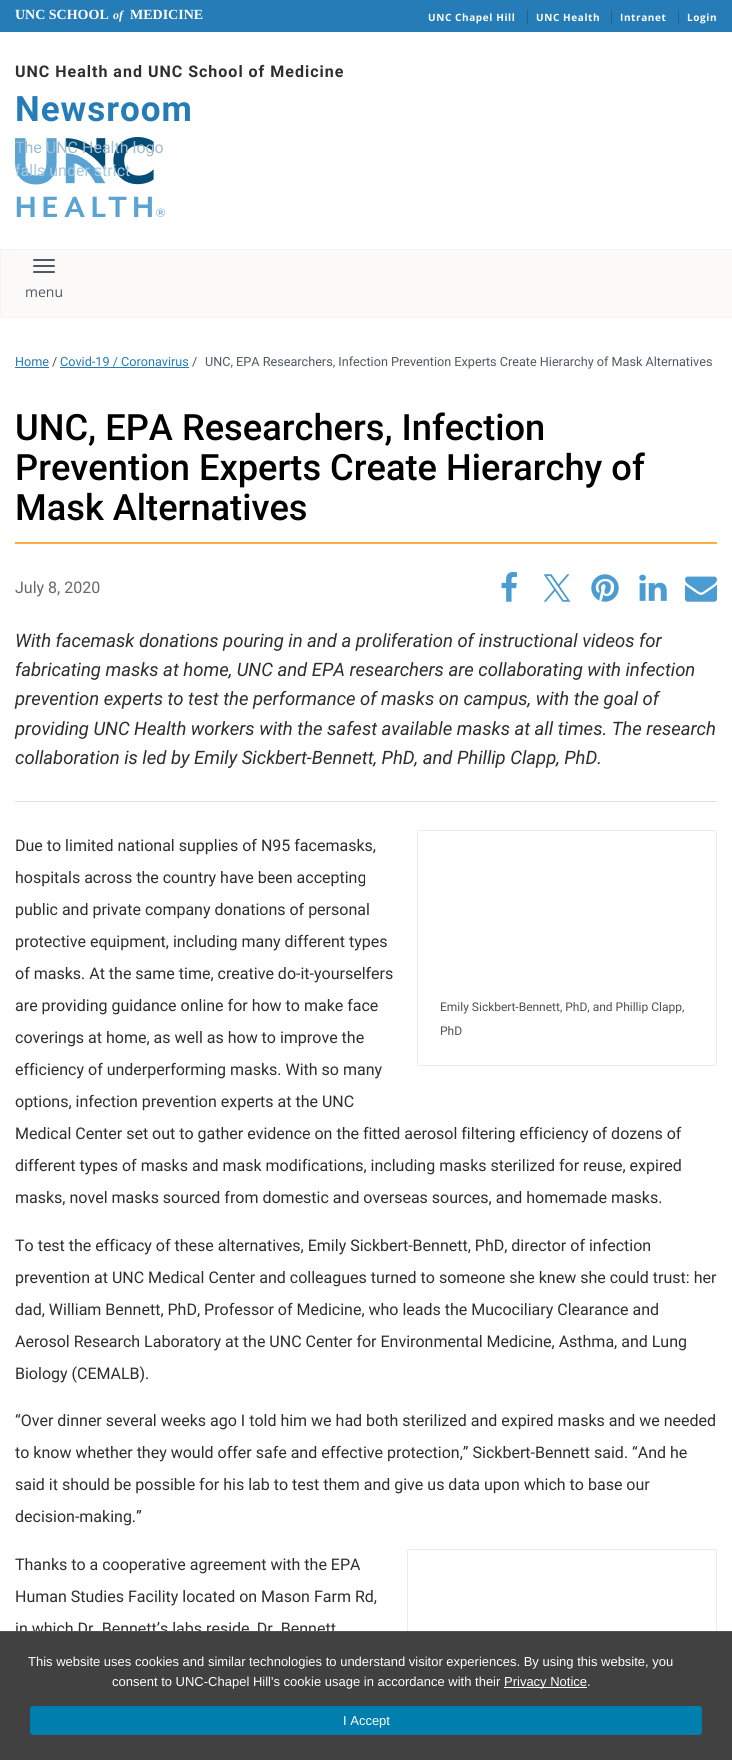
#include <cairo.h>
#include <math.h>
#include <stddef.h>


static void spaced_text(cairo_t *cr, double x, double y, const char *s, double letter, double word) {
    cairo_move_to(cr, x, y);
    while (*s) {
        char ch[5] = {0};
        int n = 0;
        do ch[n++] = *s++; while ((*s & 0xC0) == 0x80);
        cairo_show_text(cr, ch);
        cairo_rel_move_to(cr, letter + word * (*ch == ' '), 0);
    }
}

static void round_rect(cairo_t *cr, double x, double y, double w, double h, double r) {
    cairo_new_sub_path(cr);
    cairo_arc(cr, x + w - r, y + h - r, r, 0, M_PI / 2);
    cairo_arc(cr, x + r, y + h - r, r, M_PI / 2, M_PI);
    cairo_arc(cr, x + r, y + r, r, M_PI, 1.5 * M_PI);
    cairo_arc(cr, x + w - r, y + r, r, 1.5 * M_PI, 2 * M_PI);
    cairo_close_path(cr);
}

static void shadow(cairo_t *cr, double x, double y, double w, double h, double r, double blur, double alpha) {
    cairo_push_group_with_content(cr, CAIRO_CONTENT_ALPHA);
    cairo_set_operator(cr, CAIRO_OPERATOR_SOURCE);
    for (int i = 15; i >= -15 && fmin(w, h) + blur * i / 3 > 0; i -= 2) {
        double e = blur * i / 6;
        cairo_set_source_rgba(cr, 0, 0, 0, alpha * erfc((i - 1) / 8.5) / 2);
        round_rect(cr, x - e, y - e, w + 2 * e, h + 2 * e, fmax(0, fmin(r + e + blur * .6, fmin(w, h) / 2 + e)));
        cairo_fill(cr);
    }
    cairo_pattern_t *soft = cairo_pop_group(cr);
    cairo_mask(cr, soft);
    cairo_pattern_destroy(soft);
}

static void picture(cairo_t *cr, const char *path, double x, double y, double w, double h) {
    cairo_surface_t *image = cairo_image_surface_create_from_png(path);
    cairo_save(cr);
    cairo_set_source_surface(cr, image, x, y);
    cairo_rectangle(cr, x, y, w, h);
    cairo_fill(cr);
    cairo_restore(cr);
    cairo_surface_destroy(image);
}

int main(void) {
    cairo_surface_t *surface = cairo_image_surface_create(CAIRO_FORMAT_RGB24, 732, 1760);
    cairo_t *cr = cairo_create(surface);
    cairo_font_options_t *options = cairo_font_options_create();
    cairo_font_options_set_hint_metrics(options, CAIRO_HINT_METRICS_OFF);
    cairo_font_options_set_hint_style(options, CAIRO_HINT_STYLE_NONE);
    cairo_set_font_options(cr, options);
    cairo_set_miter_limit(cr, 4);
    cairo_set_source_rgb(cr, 1, 1, 1);
    cairo_paint(cr);
    cairo_set_source_rgb(cr, 0.145, 0.486, 0.718);
    cairo_rectangle(cr, 0, 0, 732, 32);
    cairo_fill(cr);
    cairo_select_font_face(cr, "Liberation Serif", CAIRO_FONT_SLANT_NORMAL, CAIRO_FONT_WEIGHT_BOLD);
    cairo_set_font_size(cr, 14);
    cairo_set_source_rgb(cr, 1, 1, 1);
    cairo_move_to(cr, 15, 19);
    cairo_show_text(cr, "UNC SCHOOL");
    cairo_select_font_face(cr, "Liberation Serif", CAIRO_FONT_SLANT_ITALIC, CAIRO_FONT_WEIGHT_BOLD);
    cairo_set_font_size(cr, 12);
    cairo_move_to(cr, 113, 19);
    cairo_show_text(cr, "of");
    cairo_select_font_face(cr, "Liberation Serif", CAIRO_FONT_SLANT_NORMAL, CAIRO_FONT_WEIGHT_BOLD);
    cairo_set_font_size(cr, 14);
    cairo_move_to(cr, 130, 19);
    cairo_show_text(cr, "MEDICINE");
    cairo_select_font_face(cr, "Open Sans", CAIRO_FONT_SLANT_NORMAL, CAIRO_FONT_WEIGHT_BOLD);
    cairo_set_font_size(cr, 10);
    spaced_text(cr, 428, 21, "UNC Chapel Hill", 0.6, 0);
    cairo_set_source_rgb(cr, 0.118, 0.388, 0.573);
    cairo_rectangle(cr, 527, 10, 1, 14);
    cairo_fill(cr);
    cairo_set_source_rgb(cr, 1, 1, 1);
    spaced_text(cr, 536, 21, "UNC Health", 0.6, 0);
    cairo_set_source_rgb(cr, 0.118, 0.388, 0.573);
    cairo_rectangle(cr, 611, 10, 1, 14);
    cairo_fill(cr);
    cairo_set_source_rgb(cr, 1, 1, 1);
    spaced_text(cr, 620, 21, "Intranet", 0.6, 0);
    cairo_set_source_rgb(cr, 0.118, 0.388, 0.573);
    cairo_rectangle(cr, 678, 10, 1, 14);
    cairo_fill(cr);
    cairo_set_source_rgb(cr, 1, 1, 1);
    spaced_text(cr, 687, 21, "Login", 0.6, 0);
    cairo_select_font_face(cr, "Roboto", CAIRO_FONT_SLANT_NORMAL, CAIRO_FONT_WEIGHT_BOLD);
    cairo_set_font_size(cr, 16);
    cairo_set_source_rgb(cr, 0.18, 0.18, 0.18);
    spaced_text(cr, 15, 77, "UNC Health and UNC School of Medicine", 1, 0);
    cairo_set_font_size(cr, 35);
    cairo_set_source_rgb(cr, 0.145, 0.486, 0.718);
    spaced_text(cr, 15, 121, "Newsroom", 1, 0);
    picture(cr, "img1.png", 15, 137, 150, 80);
    cairo_select_font_face(cr, "Roboto", CAIRO_FONT_SLANT_NORMAL, CAIRO_FONT_WEIGHT_NORMAL);
    cairo_set_font_size(cr, 16);
    cairo_set_source_rgb(cr, 0.62, 0.741, 0.816);
    cairo_move_to(cr, 15, 153);
    cairo_show_text(cr, "The UNC Health logo");
    cairo_set_source_rgb(cr, 0.651, 0.784, 0.871);
    cairo_move_to(cr, 15, 176);
    cairo_show_text(cr, "falls under strict");
    cairo_set_source_rgb(cr, 0.741, 0.741, 0.741);
    shadow(cr, 1, 250, 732, 67, 0, 0.5, 0.75);
    cairo_set_source_rgb(cr, 0.984, 0.98, 0.973);
    cairo_rectangle(cr, 1, 250, 731, 67);
    cairo_fill(cr);
    cairo_set_source_rgb(cr, 0.314, 0.349, 0.384);
    round_rect(cr, 33, 259, 22, 2, 1);
    cairo_fill(cr);
    round_rect(cr, 33, 265, 22, 2, 1);
    cairo_fill(cr);
    round_rect(cr, 33, 271, 22, 2, 1);
    cairo_fill(cr);
    cairo_select_font_face(cr, "Open Sans", CAIRO_FONT_SLANT_NORMAL, CAIRO_FONT_WEIGHT_NORMAL);
    cairo_set_font_size(cr, 14);
    cairo_move_to(cr, 25, 297);
    cairo_show_text(cr, "menu");
    cairo_select_font_face(cr, "Roboto", CAIRO_FONT_SLANT_NORMAL, CAIRO_FONT_WEIGHT_NORMAL);
    cairo_set_font_size(cr, 12.65);
    cairo_set_source_rgb(cr, 0.145, 0.486, 0.718);
    cairo_move_to(cr, 15, 366);
    cairo_show_text(cr, "Home");
    cairo_rectangle(cr, 15, 367, 34, 1);
    cairo_fill(cr);
    cairo_set_source_rgb(cr, 0.31, 0.31, 0.31);
    cairo_move_to(cr, 52, 366);
    cairo_show_text(cr, "/");
    cairo_set_source_rgb(cr, 0.145, 0.486, 0.718);
    cairo_move_to(cr, 60, 366);
    cairo_show_text(cr, "Covid-19 / Coronavirus");
    cairo_rectangle(cr, 60, 367, 129, 1);
    cairo_fill(cr);
    cairo_set_source_rgb(cr, 0.31, 0.31, 0.31);
    cairo_move_to(cr, 192, 366);
    cairo_show_text(cr, "/");
    cairo_set_source_rgb(cr, 0.314, 0.349, 0.384);
    cairo_move_to(cr, 205, 366);
    cairo_show_text(cr, "UNC, EPA Researchers, Infection Prevention Experts Create Hierarchy of Mask Alternatives");
    cairo_set_source_rgb(cr, 0.984, 0.686, 0.255);
    cairo_rectangle(cr, 15, 542, 702, 2);
    cairo_fill(cr);
    cairo_select_font_face(cr, "Roboto Medium", CAIRO_FONT_SLANT_NORMAL, CAIRO_FONT_WEIGHT_NORMAL);
    cairo_set_font_size(cr, 36.25);
    cairo_set_source_rgb(cr, 0, 0, 0);
    cairo_move_to(cr, 15, 440);
    cairo_show_text(cr, "UNC, EPA Researchers, Infection");
    cairo_move_to(cr, 15, 480);
    cairo_show_text(cr, "Prevention Experts Create Hierarchy of");
    cairo_move_to(cr, 15, 520);
    cairo_show_text(cr, "Mask Alternatives");
    cairo_select_font_face(cr, "Roboto", CAIRO_FONT_SLANT_NORMAL, CAIRO_FONT_WEIGHT_NORMAL);
    cairo_set_font_size(cr, 16);
    cairo_set_source_rgb(cr, 0.408, 0.408, 0.408);
    cairo_move_to(cr, 15, 593);
    cairo_show_text(cr, "July 8, 2020");
    picture(cr, "img2.png", 501, 572, 16, 30);
    picture(cr, "img3.png", 543, 574, 28, 28);
    picture(cr, "img4.png", 591, 574, 28, 28);
    picture(cr, "img5.png", 639, 574, 28, 27);
    picture(cr, "img6.png", 685, 576, 32, 26);
    cairo_select_font_face(cr, "Roboto", CAIRO_FONT_SLANT_ITALIC, CAIRO_FONT_WEIGHT_NORMAL);
    cairo_set_font_size(cr, 18.5);
    cairo_set_source_rgb(cr, 0.18, 0.18, 0.18);
    cairo_move_to(cr, 15, 647);
    cairo_show_text(cr, "With facemask donations pouring in and a proliferation of instructional videos for");
    cairo_move_to(cr, 15, 676);
    cairo_show_text(cr, "fabricating masks at home, UNC and EPA researchers are collaborating with infection");
    cairo_move_to(cr, 15, 705);
    cairo_show_text(cr, "prevention experts to test the performance of masks on campus, with the goal of");
    cairo_move_to(cr, 15, 735);
    cairo_show_text(cr, "providing UNC Health workers with the safest available masks at all times. The research");
    cairo_move_to(cr, 15, 764);
    cairo_show_text(cr, "collaboration is led by Emily Sickbert-Bennett, PhD, and Phillip Clapp, PhD.");
    cairo_set_source_rgb(cr, 0.882, 0.882, 0.882);
    cairo_rectangle(cr, 15, 801, 702, 1);
    cairo_fill(cr);
    cairo_select_font_face(cr, "Roboto", CAIRO_FONT_SLANT_NORMAL, CAIRO_FONT_WEIGHT_NORMAL);
    cairo_set_font_size(cr, 16);
    cairo_set_source_rgb(cr, 0.18, 0.18, 0.18);
    cairo_move_to(cr, 15, 851);
    cairo_show_text(cr, "Due to limited national supplies of N95 facemasks,");
    cairo_move_to(cr, 15, 883);
    cairo_show_text(cr, "hospitals across the country have been accepting");
    cairo_move_to(cr, 15, 915);
    cairo_show_text(cr, "public and private company donations of personal");
    cairo_move_to(cr, 15, 947);
    cairo_show_text(cr, "protective equipment, including many different types");
    cairo_move_to(cr, 15, 979);
    cairo_show_text(cr, "of masks. At the same time, creative do-it-yourselfers");
    cairo_move_to(cr, 15, 1011);
    cairo_show_text(cr, "are providing guidance online for how to make face");
    cairo_move_to(cr, 15, 1043);
    cairo_show_text(cr, "coverings at home, as well as how to improve the");
    cairo_move_to(cr, 15, 1075);
    cairo_show_text(cr, "efficiency of underperforming masks. With so many");
    cairo_move_to(cr, 15, 1107);
    cairo_show_text(cr, "options, infection prevention experts at the UNC");
    cairo_move_to(cr, 15, 1139);
    cairo_show_text(cr, "Medical Center set out to gather evidence on the fitted aerosol filtering efficiency of dozens of");
    cairo_move_to(cr, 15, 1171);
    cairo_show_text(cr, "different types of masks and mask modifications, including masks sterilized for reuse, expired");
    cairo_move_to(cr, 15, 1203);
    cairo_show_text(cr, "masks, novel masks sourced from domestic and overseas sources, and homemade masks.");
    round_rect(cr, 417.5, 830.5, 299, 235, 2.5);
    cairo_set_source_rgb(cr, 0.918, 0.918, 0.918);
    cairo_set_line_width(cr, 1);
    cairo_stroke(cr);
    cairo_set_font_size(cr, 12);
    cairo_set_source_rgb(cr, 0.31, 0.31, 0.31);
    cairo_move_to(cr, 440, 1011);
    cairo_show_text(cr, "Emily Sickbert-Bennett, PhD, and Phillip Clapp,");
    cairo_move_to(cr, 440, 1035);
    cairo_show_text(cr, "PhD");
    cairo_set_font_size(cr, 16);
    cairo_set_source_rgb(cr, 0.18, 0.18, 0.18);
    cairo_move_to(cr, 15, 1251);
    cairo_show_text(cr, "To test the efficacy of these alternatives, Emily Sickbert-Bennett, PhD, director of infection");
    cairo_move_to(cr, 15, 1283);
    cairo_show_text(cr, "prevention at UNC Medical Center and colleagues turned to someone she knew she could trust: her");
    cairo_move_to(cr, 15, 1315);
    cairo_show_text(cr, "dad, William Bennett, PhD, Professor of Medicine, who leads the Mucociliary Clearance and");
    cairo_move_to(cr, 15, 1347);
    cairo_show_text(cr, "Aerosol Research Laboratory at the UNC Center for Environmental Medicine, Asthma, and Lung");
    cairo_move_to(cr, 15, 1379);
    cairo_show_text(cr, "Biology (CEMALB).");
    cairo_move_to(cr, 15, 1426);
    cairo_show_text(cr, "“Over dinner several weeks ago I told him we had both sterilized and expired masks and we needed");
    cairo_move_to(cr, 15, 1458);
    cairo_show_text(cr, "to know whether they would offer safe and effective protection,” Sickbert-Bennett said. “And he");
    cairo_move_to(cr, 15, 1490);
    cairo_show_text(cr, "said it should be possible for his lab to test them and give us data upon which to base our");
    cairo_move_to(cr, 15, 1522);
    cairo_show_text(cr, "decision-making.”");
    cairo_move_to(cr, 15, 1570);
    cairo_show_text(cr, "Thanks to a cooperative agreement with the EPA");
    cairo_move_to(cr, 15, 1602);
    cairo_show_text(cr, "Human Studies Facility located on Mason Farm Rd,");
    cairo_move_to(cr, 15, 1634);
    cairo_show_text(cr, "in which Dr. Bennett’s labs reside, Dr. Bennett");
    round_rect(cr, 407.5, 1549.5, 309, 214, 2.5);
    cairo_set_source_rgb(cr, 0.918, 0.918, 0.918);
    cairo_stroke(cr);
    cairo_set_source_rgb(cr, 0.255, 0.255, 0.255);
    cairo_rectangle(cr, 0, 1632, 732, 128);
    cairo_fill(cr);
    cairo_set_source_rgb(cr, 0.318, 0.318, 0.318);
    cairo_rectangle(cr, 0, 1631, 732, 1);
    cairo_fill(cr);
    cairo_select_font_face(cr, "Liberation Sans", CAIRO_FONT_SLANT_NORMAL, CAIRO_FONT_WEIGHT_NORMAL);
    cairo_set_font_size(cr, 13);
    cairo_set_source_rgb(cr, 1, 1, 1);
    cairo_move_to(cr, 28, 1666);
    cairo_show_text(cr, "This website uses cookies and similar technologies to understand visitor experiences. By using this website, you");
    cairo_move_to(cr, 112, 1686);
    cairo_show_text(cr, "consent to UNC-Chapel Hill's cookie usage in accordance with their");
    cairo_rectangle(cr, 504, 1687, 83, 1);
    cairo_fill(cr);
    cairo_move_to(cr, 504, 1686);
    cairo_show_text(cr, "Privacy Notice.");
    cairo_set_source_rgb(cr, 0, 0.498, 0.682);
    round_rect(cr, 30, 1706, 672, 29, 3);
    cairo_fill(cr);
    cairo_set_source_rgb(cr, 1, 1, 1);
    cairo_move_to(cr, 343, 1725);
    cairo_show_text(cr, "I Accept");
    cairo_surface_write_to_png(surface, "page.png");
    cairo_font_options_destroy(options);
    cairo_destroy(cr);
    cairo_surface_destroy(surface);
    return 0;
}
